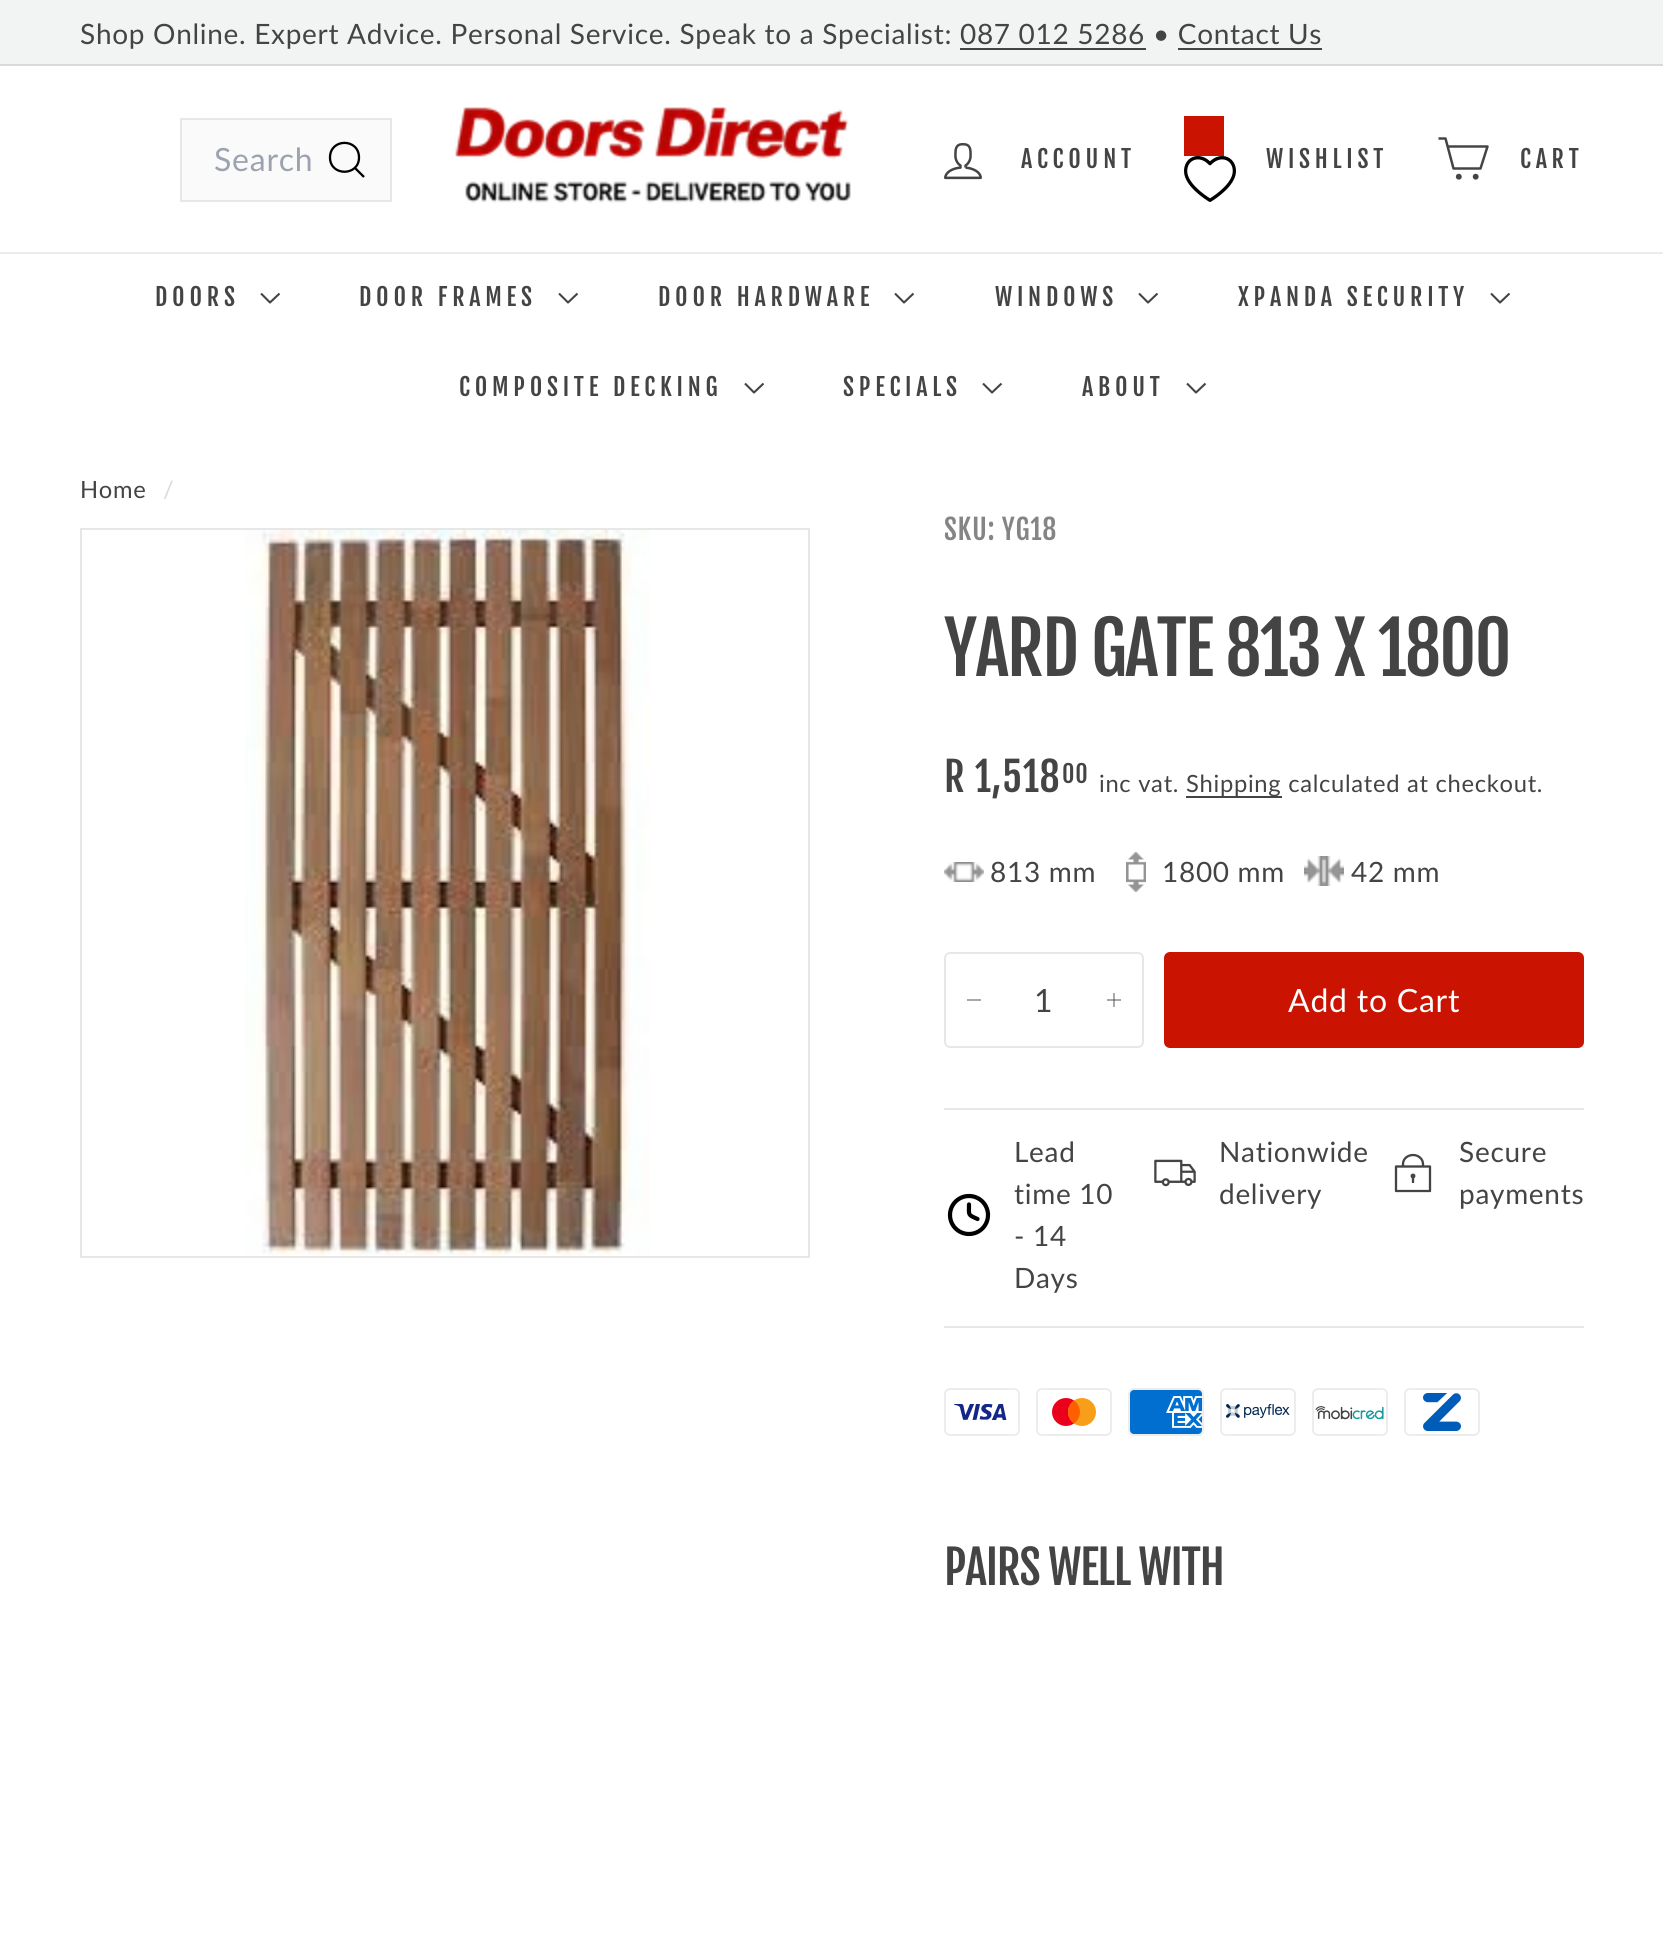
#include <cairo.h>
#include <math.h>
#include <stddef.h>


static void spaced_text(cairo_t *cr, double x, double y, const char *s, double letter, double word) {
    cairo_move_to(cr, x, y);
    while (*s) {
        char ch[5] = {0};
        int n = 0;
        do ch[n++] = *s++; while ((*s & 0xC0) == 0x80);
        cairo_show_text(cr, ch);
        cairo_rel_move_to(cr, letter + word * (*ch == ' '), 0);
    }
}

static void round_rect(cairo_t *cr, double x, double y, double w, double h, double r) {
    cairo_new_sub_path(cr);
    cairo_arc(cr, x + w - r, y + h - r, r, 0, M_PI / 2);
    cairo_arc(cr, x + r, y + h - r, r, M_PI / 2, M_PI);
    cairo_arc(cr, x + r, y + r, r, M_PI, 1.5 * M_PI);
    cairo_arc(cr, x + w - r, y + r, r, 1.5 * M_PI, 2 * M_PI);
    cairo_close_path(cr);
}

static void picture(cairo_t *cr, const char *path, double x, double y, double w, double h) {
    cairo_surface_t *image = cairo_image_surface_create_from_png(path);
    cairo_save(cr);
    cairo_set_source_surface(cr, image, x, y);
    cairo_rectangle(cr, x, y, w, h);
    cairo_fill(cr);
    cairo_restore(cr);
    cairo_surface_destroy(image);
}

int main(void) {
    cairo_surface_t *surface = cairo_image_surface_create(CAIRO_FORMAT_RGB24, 1663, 1950);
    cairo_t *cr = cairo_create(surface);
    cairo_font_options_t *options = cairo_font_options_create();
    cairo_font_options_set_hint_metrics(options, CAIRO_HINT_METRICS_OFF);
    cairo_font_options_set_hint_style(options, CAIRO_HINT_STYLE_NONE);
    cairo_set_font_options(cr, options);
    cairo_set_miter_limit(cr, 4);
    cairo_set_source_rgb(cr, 1, 1, 1);
    cairo_paint(cr);
    cairo_set_source_rgb(cr, 0.949, 0.957, 0.957);
    cairo_rectangle(cr, 0, 0, 1663, 64);
    cairo_fill(cr);
    cairo_select_font_face(cr, "Lato", CAIRO_FONT_SLANT_NORMAL, CAIRO_FONT_WEIGHT_NORMAL);
    cairo_set_font_size(cr, 28);
    cairo_set_source_rgb(cr, 0.267, 0.267, 0.267);
    spaced_text(cr, 80, 44, "Shop Online. Expert Advice. Personal Service. Speak to a Specialist: 087 012 5286 • Contact Us", 0.7, 0);
    cairo_rectangle(cr, 960, 48, 186, 2);
    cairo_fill(cr);
    cairo_rectangle(cr, 1178, 48, 144, 2);
    cairo_fill(cr);
    cairo_set_source_rgb(cr, 0.847, 0.855, 0.855);
    cairo_rectangle(cr, 0, 64, 1663, 2);
    cairo_fill(cr);
    cairo_set_source_rgb(cr, 0.98, 0.98, 0.98);
    cairo_rectangle(cr, 181, 119, 210, 82);
    cairo_fill_preserve(cr);
    cairo_set_source_rgb(cr, 0.906, 0.906, 0.906);
    cairo_stroke(cr);
    cairo_set_font_size(cr, 32);
    cairo_set_source_rgb(cr, 0.612, 0.639, 0.686);
    spaced_text(cr, 214, 171, "Search", 0.75, 0);
    cairo_new_path(cr);
    cairo_move_to(cr, 359, 157.5);
    cairo_curve_to(cr, 359, 176.5, 330, 176.5, 330, 157.5);
    cairo_curve_to(cr, 330, 138, 359, 138, 359, 157.5);
    cairo_move_to(cr, 364, 177);
    cairo_line_to(cr, 355, 168);
    cairo_set_source_rgb(cr, 0, 0, 0);
    cairo_set_line_width(cr, 2.3);
    cairo_set_line_join(cr, CAIRO_LINE_JOIN_ROUND);
    cairo_stroke(cr);
    picture(cr, "img1.png", 455, 107, 396, 96);
    picture(cr, "img2.png", 944, 142, 38, 38);
    cairo_select_font_face(cr, "Fjalla One", CAIRO_FONT_SLANT_NORMAL, CAIRO_FONT_WEIGHT_NORMAL);
    cairo_set_font_size(cr, 24);
    cairo_set_source_rgb(cr, 0.267, 0.267, 0.267);
    spaced_text(cr, 1021, 168, "ACCOUNT", 4.75, 0);
    cairo_set_source_rgb(cr, 0.792, 0.078, 0);
    cairo_rectangle(cr, 1184, 116, 40, 40);
    cairo_fill(cr);
    picture(cr, "img3.png", 1184, 156, 52, 46);
    cairo_set_source_rgb(cr, 0.267, 0.267, 0.267);
    spaced_text(cr, 1266, 168, "WISHLIST", 4.75, 0);
    cairo_new_path(cr);
    cairo_move_to(cr, 1448, 146.5);
    cairo_line_to(cr, 1487.5, 146.5);
    cairo_line_to(cr, 1480.5, 168.5);
    cairo_line_to(cr, 1453.5, 168.5);
    cairo_line_to(cr, 1445.5, 138.5);
    cairo_line_to(cr, 1438.5, 138.5);
    cairo_set_line_width(cr, 2.5);
    cairo_stroke(cr);
    cairo_arc(cr, 1458.8, 176.7, 1.7, 0, 2 * M_PI);
    cairo_fill_preserve(cr);
    cairo_set_line_join(cr, CAIRO_LINE_JOIN_MITER);
    cairo_stroke(cr);
    cairo_arc(cr, 1475.7, 176.7, 1.7, 0, 2 * M_PI);
    cairo_fill_preserve(cr);
    cairo_stroke(cr);
    spaced_text(cr, 1520, 168, "CART", 4.75, 0);
    cairo_set_source_rgb(cr, 0.925, 0.925, 0.925);
    cairo_rectangle(cr, 0, 252, 1663, 2);
    cairo_fill(cr);
    cairo_set_source_rgb(cr, 0.267, 0.267, 0.267);
    spaced_text(cr, 155, 306, "DOORS", 4.75, 0);
    cairo_new_path(cr);
    cairo_move_to(cr, 261, 293.5);
    cairo_line_to(cr, 270, 302.5);
    cairo_line_to(cr, 279.5, 293.5);
    cairo_set_line_width(cr, 2.1);
    cairo_set_line_join(cr, CAIRO_LINE_JOIN_ROUND);
    cairo_stroke(cr);
    spaced_text(cr, 359, 306, "DOOR FRAMES", 4.75, 0);
    cairo_new_path(cr);
    cairo_move_to(cr, 559, 293.5);
    cairo_line_to(cr, 568, 302.5);
    cairo_line_to(cr, 577.5, 293.5);
    cairo_stroke(cr);
    spaced_text(cr, 658, 306, "DOOR HARDWARE", 4.75, 0);
    cairo_new_path(cr);
    cairo_move_to(cr, 895, 293.5);
    cairo_line_to(cr, 904, 302.5);
    cairo_line_to(cr, 913.5, 293.5);
    cairo_stroke(cr);
    spaced_text(cr, 995, 306, "WINDOWS", 4.75, 0);
    cairo_new_path(cr);
    cairo_move_to(cr, 1139, 293.5);
    cairo_line_to(cr, 1148, 302.5);
    cairo_line_to(cr, 1157.5, 293.5);
    cairo_stroke(cr);
    spaced_text(cr, 1238, 306, "XPANDA SECURITY", 4.75, 0);
    cairo_new_path(cr);
    cairo_move_to(cr, 1491, 293.5);
    cairo_line_to(cr, 1500, 302.5);
    cairo_line_to(cr, 1509.5, 293.5);
    cairo_stroke(cr);
    spaced_text(cr, 459, 396, "COMPOSITE DECKING", 4.75, 0);
    cairo_new_path(cr);
    cairo_move_to(cr, 745, 383.5);
    cairo_line_to(cr, 754, 392.5);
    cairo_line_to(cr, 763.5, 383.5);
    cairo_stroke(cr);
    spaced_text(cr, 843, 396, "SPECIALS", 4.75, 0);
    cairo_new_path(cr);
    cairo_move_to(cr, 983, 383.5);
    cairo_line_to(cr, 992, 392.5);
    cairo_line_to(cr, 1001.5, 383.5);
    cairo_stroke(cr);
    spaced_text(cr, 1082, 396, "ABOUT", 4.75, 0);
    cairo_new_path(cr);
    cairo_move_to(cr, 1187, 383.5);
    cairo_line_to(cr, 1196, 392.5);
    cairo_line_to(cr, 1205.5, 383.5);
    cairo_stroke(cr);
    cairo_select_font_face(cr, "Lato", CAIRO_FONT_SLANT_NORMAL, CAIRO_FONT_WEIGHT_NORMAL);
    cairo_set_font_size(cr, 23.75);
    spaced_text(cr, 80, 498, "Home", 0.7, 0);
    cairo_set_source_rgb(cr, 0.855, 0.855, 0.855);
    spaced_text(cr, 163, 498, "/", 0.7, 0);
    cairo_rectangle(cr, 81, 529, 728, 728);
    cairo_set_source_rgb(cr, 0.906, 0.906, 0.906);
    cairo_set_line_width(cr, 2);
    cairo_set_line_join(cr, CAIRO_LINE_JOIN_MITER);
    cairo_stroke(cr);
    picture(cr, "img4.png", 245, 530, 405, 726);
    cairo_select_font_face(cr, "Fjalla One", CAIRO_FONT_SLANT_NORMAL, CAIRO_FONT_WEIGHT_NORMAL);
    cairo_set_font_size(cr, 28);
    cairo_set_source_rgb(cr, 0.522, 0.522, 0.522);
    spaced_text(cr, 944, 540, "SKU: YG18", 0.7, 0);
    cairo_set_font_size(cr, 71.5);
    cairo_set_source_rgb(cr, 0.267, 0.267, 0.267);
    spaced_text(cr, 944, 676, "YARD GATE 813 X 1800", -1.75, 0);
    cairo_set_font_size(cr, 40);
    spaced_text(cr, 944, 792, "R 1,518", 0.7, 0);
    cairo_set_font_size(cr, 24);
    spaced_text(cr, 1062, 783, "00", 0.7, 0);
    cairo_select_font_face(cr, "Lato", CAIRO_FONT_SLANT_NORMAL, CAIRO_FONT_WEIGHT_NORMAL);
    cairo_set_font_size(cr, 23.75);
    spaced_text(cr, 1099, 792, "inc vat.", 0.7, 0);
    cairo_rectangle(cr, 1186, 796, 96, 2);
    cairo_fill(cr);
    spaced_text(cr, 1186, 792, "Shipping calculated at checkout.", 0.7, 0);
    picture(cr, "img5.png", 944, 862, 40, 20);
    cairo_set_font_size(cr, 28);
    spaced_text(cr, 990, 882, "813 mm", 0.7, 0);
    picture(cr, "img6.png", 1126, 852, 20, 40);
    spaced_text(cr, 1162, 882, "1800 mm", 0.7, 0);
    picture(cr, "img7.png", 1304, 856, 40, 30);
    spaced_text(cr, 1351, 882, "42 mm", 0.7, 0);
    round_rect(cr, 945, 953, 198, 94, 5);
    cairo_set_source_rgb(cr, 0.906, 0.906, 0.906);
    cairo_stroke(cr);
    cairo_new_path(cr);
    cairo_move_to(cr, 981, 1000);
    cairo_line_to(cr, 967, 1000);
    cairo_set_source_rgb(cr, 0.267, 0.267, 0.267);
    cairo_set_line_width(cr, 0.9);
    cairo_set_line_join(cr, CAIRO_LINE_JOIN_ROUND);
    cairo_stroke(cr);
    cairo_set_font_size(cr, 32);
    spaced_text(cr, 1034, 1012, "1", 0.75, 0);
    cairo_new_path(cr);
    cairo_move_to(cr, 1114, 993);
    cairo_line_to(cr, 1114, 1007);
    cairo_move_to(cr, 1121, 1000);
    cairo_line_to(cr, 1107, 1000);
    cairo_stroke(cr);
    cairo_set_source_rgb(cr, 0.792, 0.078, 0);
    round_rect(cr, 1164, 952, 420, 96, 6);
    cairo_fill(cr);
    cairo_set_source_rgb(cr, 1, 1, 1);
    spaced_text(cr, 1288, 1012, "Add to Cart", 0.75, 0);
    cairo_set_source_rgb(cr, 0.906, 0.906, 0.906);
    cairo_rectangle(cr, 944, 1108, 640, 2);
    cairo_fill(cr);
    cairo_rectangle(cr, 944, 1326, 640, 2);
    cairo_fill(cr);
    cairo_arc(cr, 969, 1215, 19, 0, 2 * M_PI);
    cairo_set_source_rgb(cr, 0, 0, 0);
    cairo_set_line_width(cr, 4.2);
    cairo_set_line_join(cr, CAIRO_LINE_JOIN_MITER);
    cairo_stroke(cr);
    cairo_new_path(cr);
    cairo_move_to(cr, 969, 1204.5);
    cairo_curve_to(cr, 969, 1215.5, 967.5, 1214.5, 977.5, 1219);
    cairo_set_line_cap(cr, CAIRO_LINE_CAP_ROUND);
    cairo_set_line_join(cr, CAIRO_LINE_JOIN_ROUND);
    cairo_stroke(cr);
    cairo_set_font_size(cr, 28);
    cairo_set_source_rgb(cr, 0.267, 0.267, 0.267);
    spaced_text(cr, 1014, 1162, "Lead", 0.7, 0);
    spaced_text(cr, 1014, 1204, "time 10", 0.7, 0);
    spaced_text(cr, 1014, 1246, "- 14", 0.7, 0);
    spaced_text(cr, 1014, 1288, "Days", 0.7, 0);
    picture(cr, "img8.png", 1154, 1159, 42, 28);
    spaced_text(cr, 1219, 1162, "Nationwide", 0.7, 0);
    spaced_text(cr, 1219, 1204, "delivery", 0.7, 0);
    cairo_new_path(cr);
    cairo_move_to(cr, 1403, 1166.5);
    cairo_line_to(cr, 1403, 1164);
    cairo_curve_to(cr, 1403, 1158.5, 1408, 1155, 1413, 1155);
    cairo_curve_to(cr, 1418.5, 1155, 1423, 1159, 1423, 1164);
    cairo_line_to(cr, 1423, 1166.5);
    cairo_move_to(cr, 1396, 1166.5);
    cairo_line_to(cr, 1430, 1166.5);
    cairo_line_to(cr, 1430, 1191);
    cairo_line_to(cr, 1396, 1191);
    cairo_close_path(cr);
    cairo_move_to(cr, 1413, 1177.5);
    cairo_line_to(cr, 1413, 1183);
    cairo_set_line_width(cr, 2.3);
    cairo_set_line_cap(cr, CAIRO_LINE_CAP_BUTT);
    cairo_stroke(cr);
    cairo_arc(cr, 1413, 1176, 1.3, 0, 2 * M_PI);
    cairo_set_line_join(cr, CAIRO_LINE_JOIN_MITER);
    cairo_stroke(cr);
    spaced_text(cr, 1459, 1162, "Secure", 0.7, 0);
    spaced_text(cr, 1459, 1204, "payments", 0.7, 0);
    picture(cr, "img9.png", 944, 1388, 76, 48);
    picture(cr, "img10.png", 1036, 1388, 76, 48);
    picture(cr, "img11.png", 1128, 1388, 76, 48);
    picture(cr, "img12.png", 1220, 1388, 76, 48);
    picture(cr, "img13.png", 1312, 1388, 76, 48);
    picture(cr, "img14.png", 1404, 1388, 76, 48);
    cairo_select_font_face(cr, "Fjalla One", CAIRO_FONT_SLANT_NORMAL, CAIRO_FONT_WEIGHT_NORMAL);
    cairo_set_font_size(cr, 46.25);
    spaced_text(cr, 944, 1585, "PAIRS WELL WITH", -1.2, 0);
    cairo_surface_write_to_png(surface, "page.png");
    cairo_font_options_destroy(options);
    cairo_destroy(cr);
    cairo_surface_destroy(surface);
    return 0;
}
